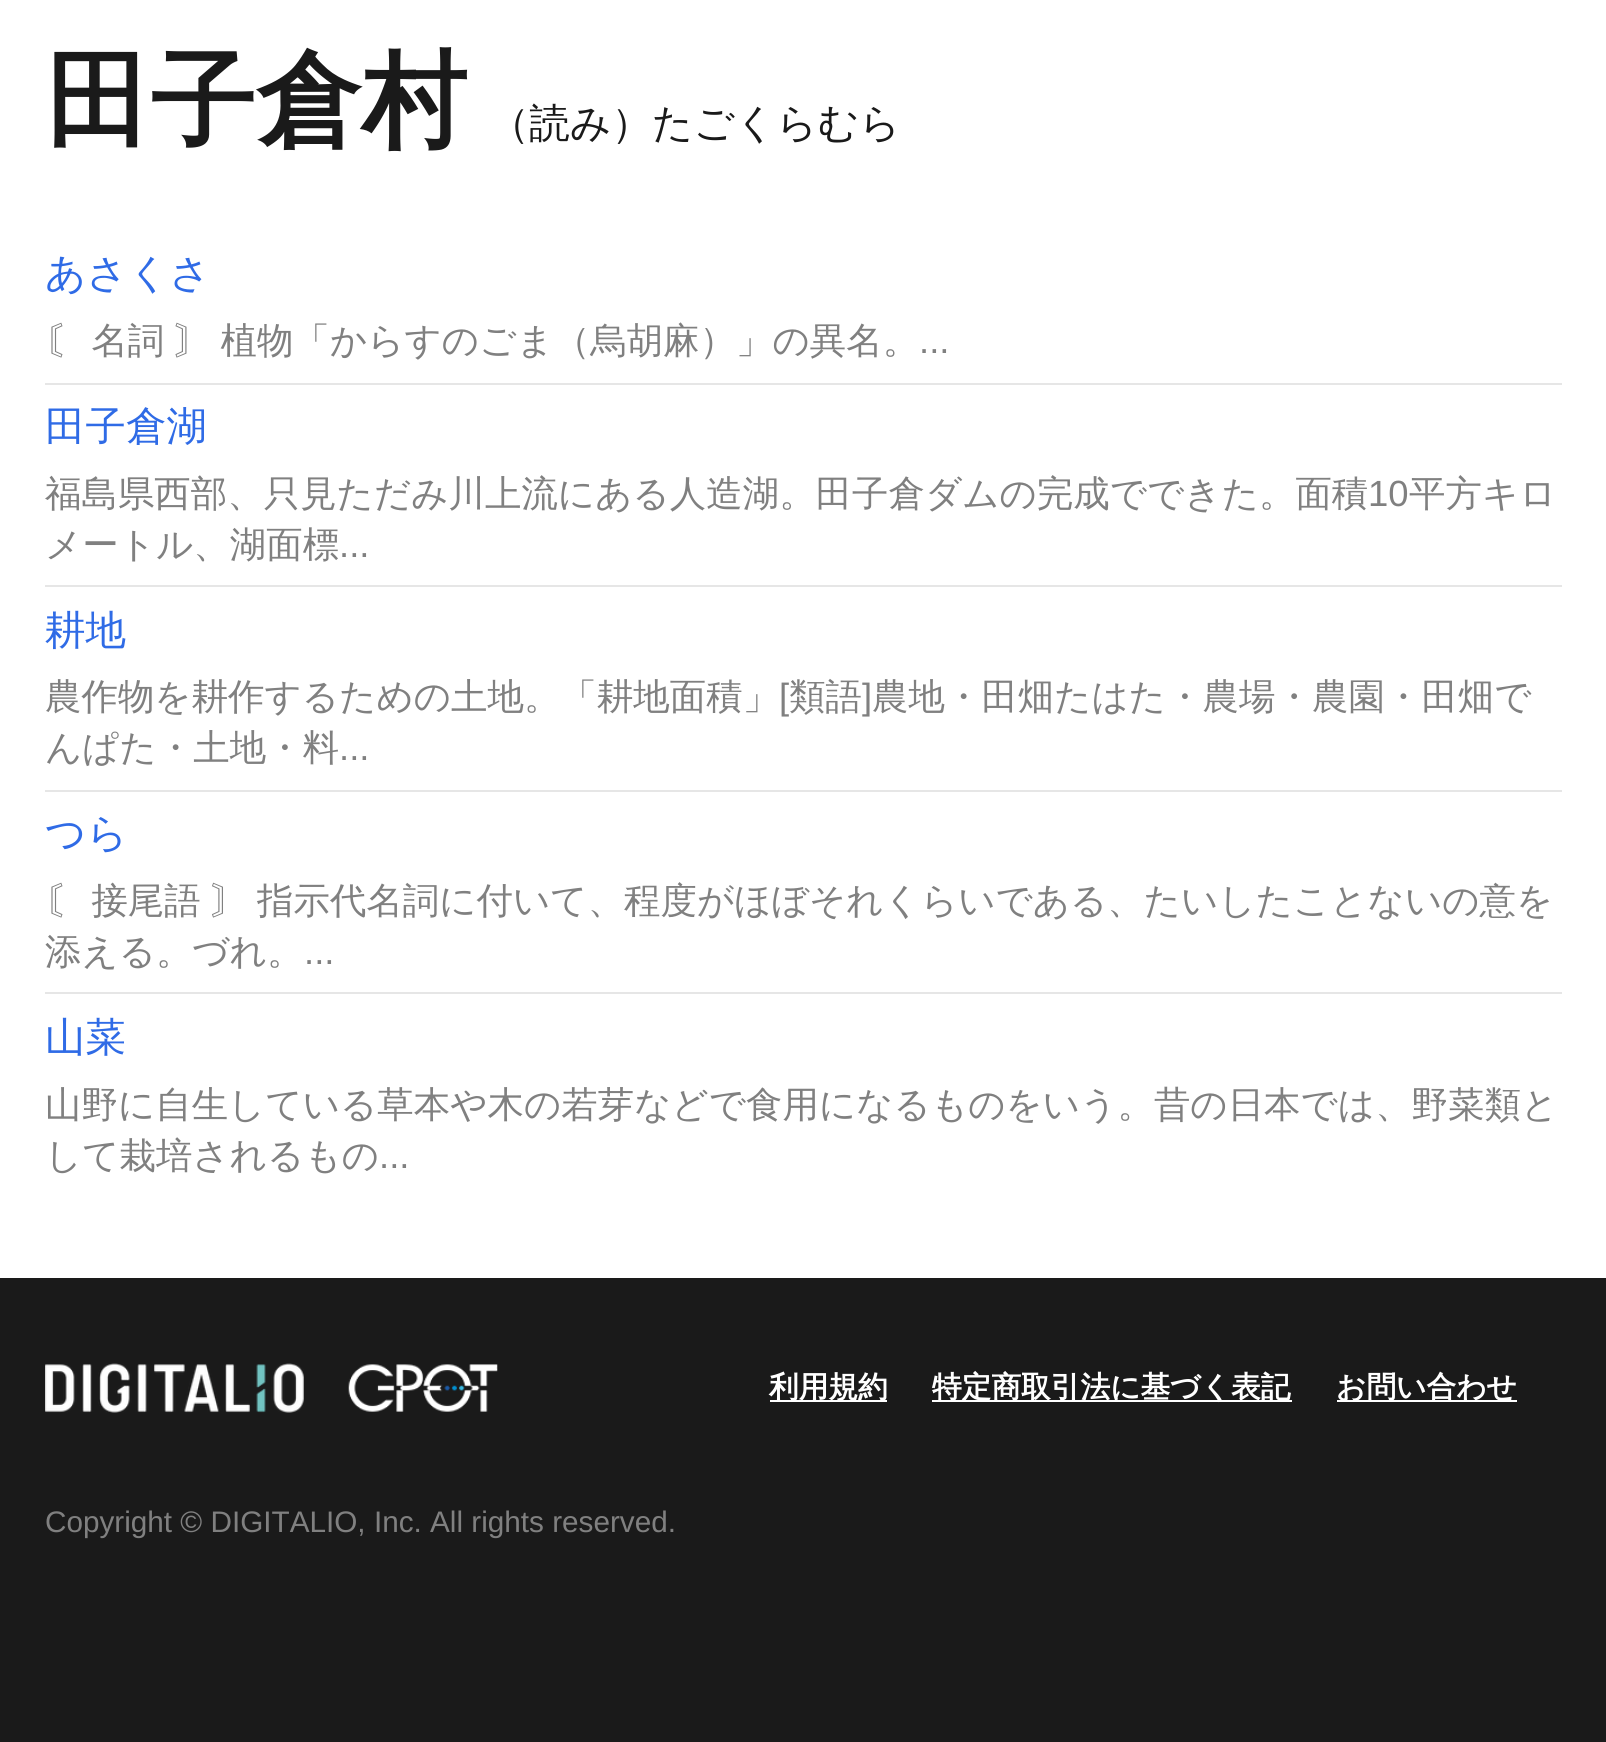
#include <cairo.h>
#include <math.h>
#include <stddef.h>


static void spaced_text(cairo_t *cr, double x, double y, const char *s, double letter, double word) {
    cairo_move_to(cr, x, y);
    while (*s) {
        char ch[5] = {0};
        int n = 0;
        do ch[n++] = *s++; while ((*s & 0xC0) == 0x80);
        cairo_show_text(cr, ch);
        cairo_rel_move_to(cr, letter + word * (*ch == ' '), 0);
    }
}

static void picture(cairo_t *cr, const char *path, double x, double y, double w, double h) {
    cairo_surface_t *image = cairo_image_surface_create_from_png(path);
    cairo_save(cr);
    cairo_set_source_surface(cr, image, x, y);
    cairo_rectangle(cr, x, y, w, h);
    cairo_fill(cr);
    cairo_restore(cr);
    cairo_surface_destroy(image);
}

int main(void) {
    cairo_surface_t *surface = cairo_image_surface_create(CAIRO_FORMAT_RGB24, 1606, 1742);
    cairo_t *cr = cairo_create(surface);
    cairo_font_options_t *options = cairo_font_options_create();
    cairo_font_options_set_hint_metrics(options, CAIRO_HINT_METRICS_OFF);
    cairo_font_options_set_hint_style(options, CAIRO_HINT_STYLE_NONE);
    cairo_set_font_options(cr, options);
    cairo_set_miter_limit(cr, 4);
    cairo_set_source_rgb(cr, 1, 1, 1);
    cairo_paint(cr);
    cairo_select_font_face(cr, "WenQuanYi Zen Hei", CAIRO_FONT_SLANT_NORMAL, CAIRO_FONT_WEIGHT_BOLD);
    cairo_set_font_size(cr, 105.5);
    cairo_set_source_rgb(cr, 0.102, 0.102, 0.102);
    cairo_move_to(cr, 45, 137);
    cairo_show_text(cr, "田子倉村");
    cairo_select_font_face(cr, "WenQuanYi Zen Hei Medium", CAIRO_FONT_SLANT_NORMAL, CAIRO_FONT_WEIGHT_NORMAL);
    cairo_set_font_size(cr, 40.5);
    cairo_move_to(cr, 489, 137);
    cairo_show_text(cr, "（読み）たごくらむら");
    cairo_set_source_rgb(cr, 0.184, 0.42, 0.902);
    cairo_move_to(cr, 45, 287);
    cairo_show_text(cr, "あさくさ");
    cairo_set_font_size(cr, 36.45);
    cairo_set_source_rgb(cr, 0.502, 0.502, 0.502);
    spaced_text(cr, 45, 353, "〘 名詞 〙 植物「からすのごま（烏胡麻）」の異名。", 0, -1);
    cairo_select_font_face(cr, "Liberation Sans", CAIRO_FONT_SLANT_NORMAL, CAIRO_FONT_WEIGHT_NORMAL);
    cairo_move_to(cr, 919, 353);
    cairo_show_text(cr, "...");
    cairo_set_source_rgb(cr, 0.902, 0.902, 0.902);
    cairo_rectangle(cr, 45, 383, 1517, 2);
    cairo_fill(cr);
    cairo_select_font_face(cr, "WenQuanYi Zen Hei Medium", CAIRO_FONT_SLANT_NORMAL, CAIRO_FONT_WEIGHT_NORMAL);
    cairo_set_font_size(cr, 40.5);
    cairo_set_source_rgb(cr, 0.184, 0.42, 0.902);
    cairo_move_to(cr, 45, 440);
    cairo_show_text(cr, "田子倉湖");
    cairo_set_font_size(cr, 36.45);
    cairo_set_source_rgb(cr, 0.502, 0.502, 0.502);
    cairo_move_to(cr, 45, 506);
    cairo_show_text(cr, "福島県西部、只見ただみ川上流にある人造湖。田子倉ダムの完成でできた。面積");
    cairo_select_font_face(cr, "Liberation Sans", CAIRO_FONT_SLANT_NORMAL, CAIRO_FONT_WEIGHT_NORMAL);
    cairo_move_to(cr, 1368, 506);
    cairo_show_text(cr, "10");
    cairo_select_font_face(cr, "WenQuanYi Zen Hei Medium", CAIRO_FONT_SLANT_NORMAL, CAIRO_FONT_WEIGHT_NORMAL);
    cairo_move_to(cr, 1409, 506);
    cairo_show_text(cr, "平方キロ");
    cairo_move_to(cr, 45, 557);
    cairo_show_text(cr, "メートル、湖面標");
    cairo_select_font_face(cr, "Liberation Sans", CAIRO_FONT_SLANT_NORMAL, CAIRO_FONT_WEIGHT_NORMAL);
    cairo_move_to(cr, 339, 557);
    cairo_show_text(cr, "...");
    cairo_set_source_rgb(cr, 0.902, 0.902, 0.902);
    cairo_rectangle(cr, 45, 585, 1517, 2);
    cairo_fill(cr);
    cairo_select_font_face(cr, "WenQuanYi Zen Hei Medium", CAIRO_FONT_SLANT_NORMAL, CAIRO_FONT_WEIGHT_NORMAL);
    cairo_set_font_size(cr, 40.5);
    cairo_set_source_rgb(cr, 0.184, 0.42, 0.902);
    cairo_move_to(cr, 45, 644);
    cairo_show_text(cr, "耕地");
    cairo_set_font_size(cr, 36.45);
    cairo_set_source_rgb(cr, 0.502, 0.502, 0.502);
    cairo_move_to(cr, 45, 709);
    cairo_show_text(cr, "農作物を耕作するための土地。「耕地面積」");
    cairo_select_font_face(cr, "Liberation Sans", CAIRO_FONT_SLANT_NORMAL, CAIRO_FONT_WEIGHT_NORMAL);
    cairo_move_to(cr, 779, 709);
    cairo_show_text(cr, "[");
    cairo_select_font_face(cr, "WenQuanYi Zen Hei Medium", CAIRO_FONT_SLANT_NORMAL, CAIRO_FONT_WEIGHT_NORMAL);
    cairo_move_to(cr, 789, 709);
    cairo_show_text(cr, "類語");
    cairo_select_font_face(cr, "Liberation Sans", CAIRO_FONT_SLANT_NORMAL, CAIRO_FONT_WEIGHT_NORMAL);
    cairo_move_to(cr, 862, 709);
    cairo_show_text(cr, "]");
    cairo_select_font_face(cr, "WenQuanYi Zen Hei Medium", CAIRO_FONT_SLANT_NORMAL, CAIRO_FONT_WEIGHT_NORMAL);
    cairo_move_to(cr, 872, 709);
    cairo_show_text(cr, "農地・田畑たはた・農場・農園・田畑で");
    cairo_move_to(cr, 45, 760);
    cairo_show_text(cr, "んぱた・土地・料");
    cairo_select_font_face(cr, "Liberation Sans", CAIRO_FONT_SLANT_NORMAL, CAIRO_FONT_WEIGHT_NORMAL);
    cairo_move_to(cr, 339, 760);
    cairo_show_text(cr, "...");
    cairo_set_source_rgb(cr, 0.902, 0.902, 0.902);
    cairo_rectangle(cr, 45, 790, 1517, 2);
    cairo_fill(cr);
    cairo_select_font_face(cr, "WenQuanYi Zen Hei Medium", CAIRO_FONT_SLANT_NORMAL, CAIRO_FONT_WEIGHT_NORMAL);
    cairo_set_font_size(cr, 40.5);
    cairo_set_source_rgb(cr, 0.184, 0.42, 0.902);
    cairo_move_to(cr, 45, 847);
    cairo_show_text(cr, "つら");
    cairo_set_font_size(cr, 36.45);
    cairo_set_source_rgb(cr, 0.502, 0.502, 0.502);
    spaced_text(cr, 45, 913, "〘 接尾語 〙 指示代名詞に付いて、程度がほぼそれくらいである、たいしたことないの意を", 0, -1);
    cairo_move_to(cr, 45, 964);
    cairo_show_text(cr, "添える。づれ。");
    cairo_select_font_face(cr, "Liberation Sans", CAIRO_FONT_SLANT_NORMAL, CAIRO_FONT_WEIGHT_NORMAL);
    cairo_move_to(cr, 304, 964);
    cairo_show_text(cr, "...");
    cairo_set_source_rgb(cr, 0.902, 0.902, 0.902);
    cairo_rectangle(cr, 45, 992, 1517, 2);
    cairo_fill(cr);
    cairo_select_font_face(cr, "WenQuanYi Zen Hei Medium", CAIRO_FONT_SLANT_NORMAL, CAIRO_FONT_WEIGHT_NORMAL);
    cairo_set_font_size(cr, 40.5);
    cairo_set_source_rgb(cr, 0.184, 0.42, 0.902);
    cairo_move_to(cr, 45, 1051);
    cairo_show_text(cr, "山菜");
    cairo_set_font_size(cr, 36.45);
    cairo_set_source_rgb(cr, 0.502, 0.502, 0.502);
    cairo_move_to(cr, 45, 1117);
    cairo_show_text(cr, "山野に自生している草本や木の若芽などで食用になるものをいう。昔の日本では、野菜類と");
    cairo_move_to(cr, 45, 1168);
    cairo_show_text(cr, "して栽培されるもの");
    cairo_select_font_face(cr, "Liberation Sans", CAIRO_FONT_SLANT_NORMAL, CAIRO_FONT_WEIGHT_NORMAL);
    cairo_move_to(cr, 379, 1168);
    cairo_show_text(cr, "...");
    cairo_set_source_rgb(cr, 0.102, 0.102, 0.102);
    cairo_rectangle(cr, 0, 1278, 1606, 464);
    cairo_fill(cr);
    picture(cr, "img1.png", 45, 1363, 259, 50);
    picture(cr, "img2.png", 348, 1364, 150, 48);
    cairo_set_source_rgb(cr, 1, 1, 1);
    cairo_rectangle(cr, 770, 1400, 117, 2);
    cairo_fill(cr);
    cairo_select_font_face(cr, "WenQuanYi Zen Hei", CAIRO_FONT_SLANT_NORMAL, CAIRO_FONT_WEIGHT_BOLD);
    cairo_set_font_size(cr, 29.7);
    cairo_move_to(cr, 769, 1397);
    cairo_show_text(cr, "利用規約");
    cairo_rectangle(cr, 932, 1400, 360, 2);
    cairo_fill(cr);
    cairo_move_to(cr, 932, 1397);
    cairo_show_text(cr, "特定商取引法に基づく表記");
    cairo_rectangle(cr, 1337, 1400, 180, 2);
    cairo_fill(cr);
    cairo_move_to(cr, 1336, 1397);
    cairo_show_text(cr, "お問い合わせ");
    cairo_select_font_face(cr, "Liberation Sans", CAIRO_FONT_SLANT_NORMAL, CAIRO_FONT_WEIGHT_NORMAL);
    cairo_set_source_rgb(cr, 0.502, 0.502, 0.502);
    cairo_move_to(cr, 45, 1532);
    cairo_show_text(cr, "Copyright © DIGITALIO, Inc. All rights reserved.");
    cairo_surface_write_to_png(surface, "page.png");
    cairo_font_options_destroy(options);
    cairo_destroy(cr);
    cairo_surface_destroy(surface);
    return 0;
}
